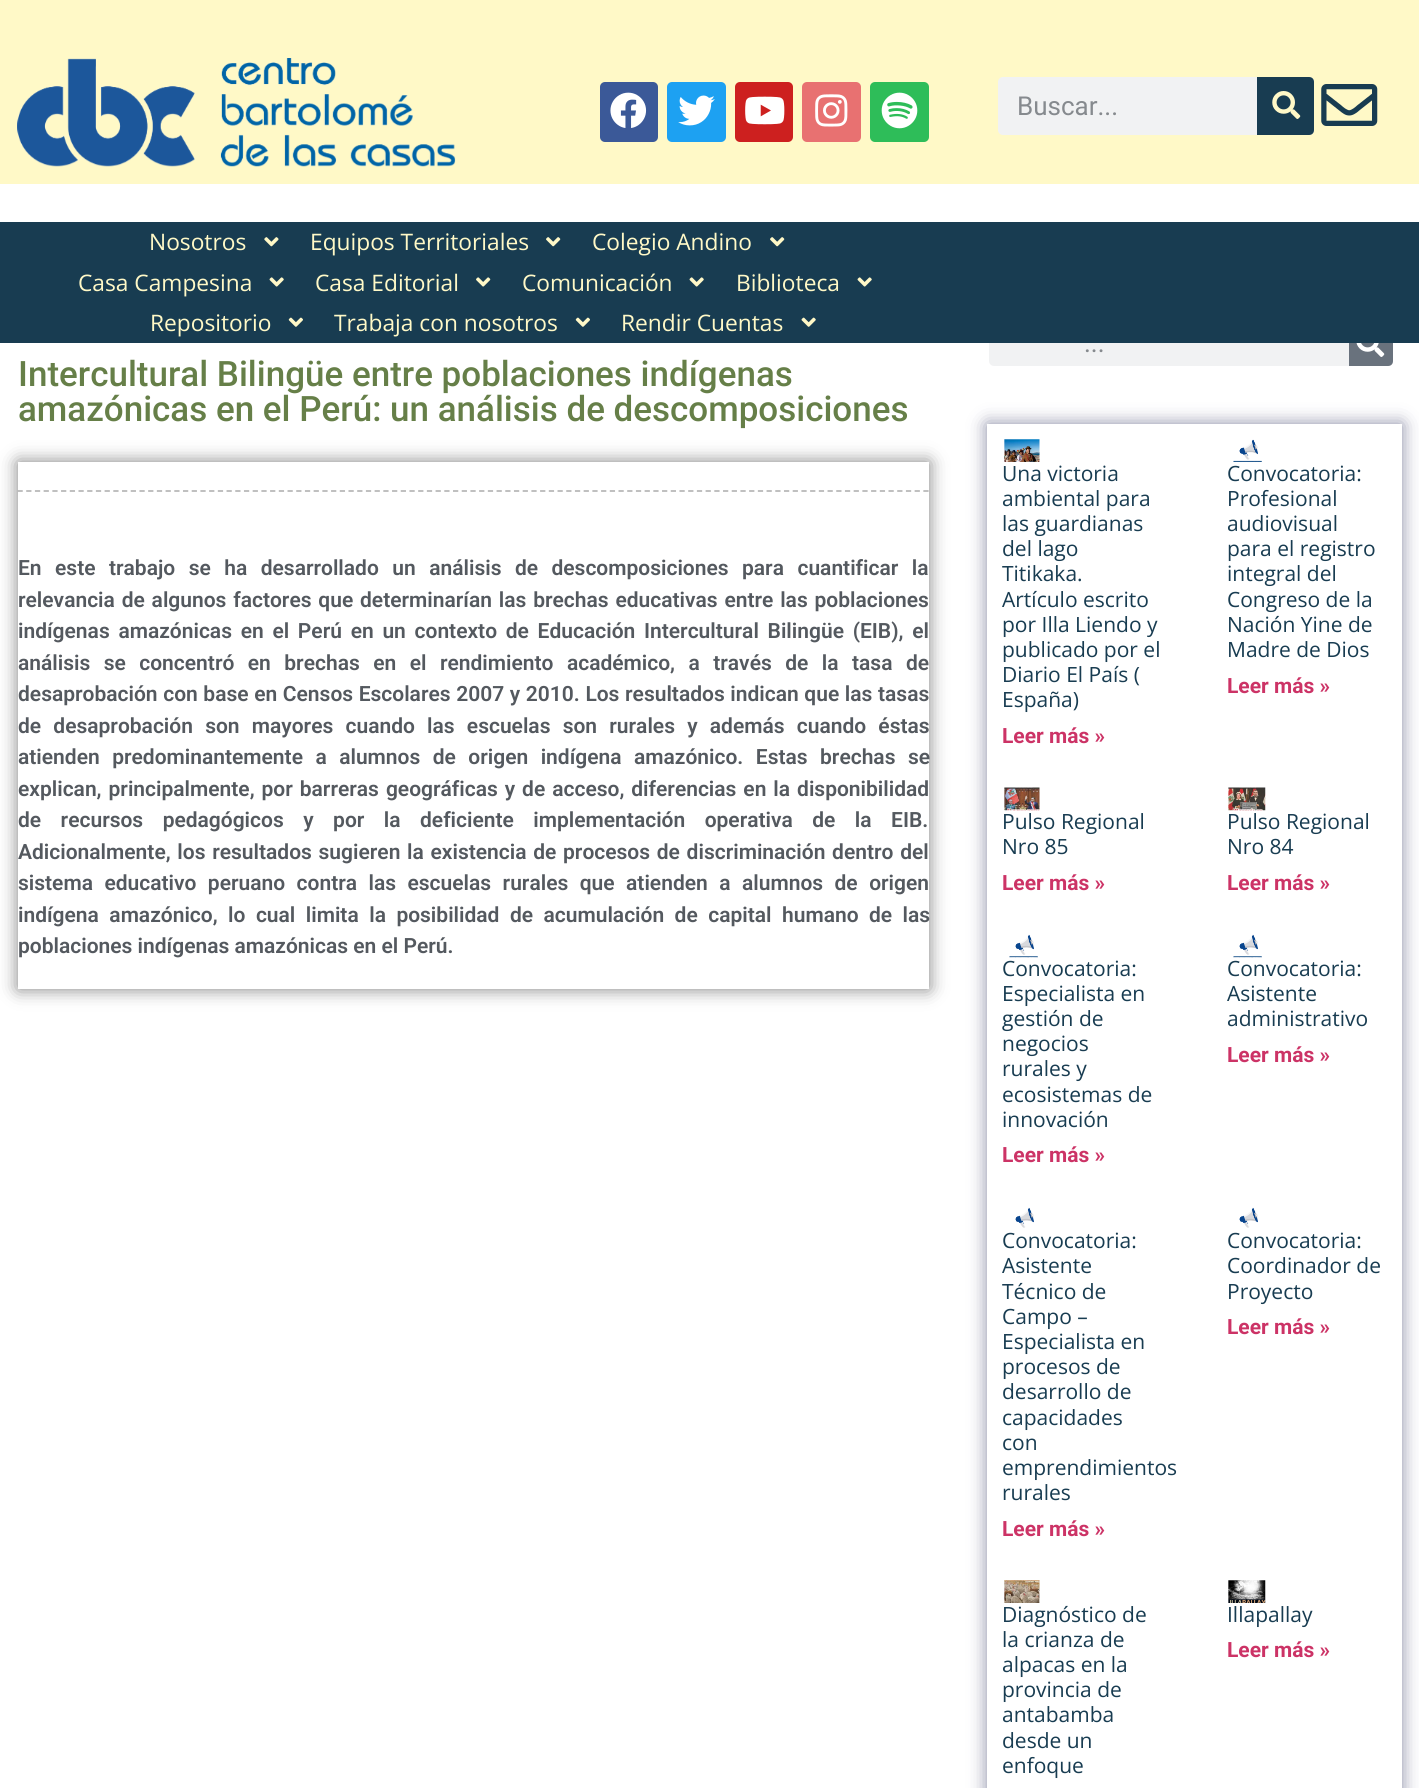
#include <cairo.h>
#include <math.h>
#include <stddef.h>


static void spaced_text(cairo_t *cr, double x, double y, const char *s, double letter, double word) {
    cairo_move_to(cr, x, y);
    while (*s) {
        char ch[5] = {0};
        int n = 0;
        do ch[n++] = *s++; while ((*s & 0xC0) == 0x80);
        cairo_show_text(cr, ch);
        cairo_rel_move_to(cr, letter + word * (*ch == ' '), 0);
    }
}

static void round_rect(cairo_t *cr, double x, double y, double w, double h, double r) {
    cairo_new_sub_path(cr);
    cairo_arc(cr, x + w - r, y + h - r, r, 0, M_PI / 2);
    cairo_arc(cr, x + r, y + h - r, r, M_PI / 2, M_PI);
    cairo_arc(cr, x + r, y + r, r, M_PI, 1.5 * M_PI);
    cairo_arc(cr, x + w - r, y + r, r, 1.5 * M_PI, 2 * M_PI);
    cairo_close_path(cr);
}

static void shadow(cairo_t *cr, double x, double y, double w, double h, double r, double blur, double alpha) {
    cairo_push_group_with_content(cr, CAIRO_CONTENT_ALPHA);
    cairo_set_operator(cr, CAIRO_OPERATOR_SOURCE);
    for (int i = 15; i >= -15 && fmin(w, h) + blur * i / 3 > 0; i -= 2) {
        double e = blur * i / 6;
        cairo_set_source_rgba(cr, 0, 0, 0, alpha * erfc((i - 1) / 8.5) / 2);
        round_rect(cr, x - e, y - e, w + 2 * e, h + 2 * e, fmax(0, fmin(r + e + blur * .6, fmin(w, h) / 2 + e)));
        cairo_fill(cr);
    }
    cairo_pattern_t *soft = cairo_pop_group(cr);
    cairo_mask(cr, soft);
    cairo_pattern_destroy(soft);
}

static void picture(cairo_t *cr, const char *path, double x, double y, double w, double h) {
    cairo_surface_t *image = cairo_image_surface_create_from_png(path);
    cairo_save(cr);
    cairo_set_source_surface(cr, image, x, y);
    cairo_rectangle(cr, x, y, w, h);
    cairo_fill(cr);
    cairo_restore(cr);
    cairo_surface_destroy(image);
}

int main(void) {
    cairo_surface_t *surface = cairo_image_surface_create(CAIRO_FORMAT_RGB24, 1419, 1788);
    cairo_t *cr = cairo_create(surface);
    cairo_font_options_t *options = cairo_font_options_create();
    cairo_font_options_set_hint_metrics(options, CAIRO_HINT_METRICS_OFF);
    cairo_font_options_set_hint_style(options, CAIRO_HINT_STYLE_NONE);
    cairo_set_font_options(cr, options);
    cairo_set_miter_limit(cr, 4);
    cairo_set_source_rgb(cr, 1, 1, 1);
    cairo_paint(cr);
    cairo_set_source_rgb(cr, 1, 0.973, 0.78);
    cairo_rectangle(cr, 0, 0, 1419, 184);
    cairo_fill(cr);
    picture(cr, "img1.png", 17, 58, 439, 109);
    cairo_set_source_rgb(cr, 0.231, 0.349, 0.596);
    round_rect(cr, 600, 82, 58, 60, 5);
    cairo_fill(cr);
    picture(cr, "img2.png", 610, 92, 37, 36);
    cairo_set_source_rgb(cr, 0.114, 0.631, 0.949);
    round_rect(cr, 667, 82, 59, 60, 5);
    cairo_fill(cr);
    picture(cr, "img3.png", 678, 95, 37, 31);
    cairo_set_source_rgb(cr, 0.804, 0.125, 0.122);
    round_rect(cr, 735, 82, 58, 60, 5);
    cairo_fill(cr);
    picture(cr, "img4.png", 745, 96, 40, 29);
    cairo_set_source_rgb(cr, 0.91, 0.443, 0.443);
    round_rect(cr, 802, 82, 59, 60, 5);
    cairo_fill(cr);
    picture(cr, "img5.png", 815, 94, 33, 33);
    cairo_set_source_rgb(cr, 0.18, 0.741, 0.349);
    round_rect(cr, 870, 82, 59, 60, 5);
    cairo_fill(cr);
    picture(cr, "img6.png", 881, 92, 37, 37);
    cairo_set_source_rgb(cr, 0.945, 0.949, 0.953);
    round_rect(cr, 998, 77, 316, 58, 5);
    cairo_fill(cr);
    cairo_select_font_face(cr, "Roboto", CAIRO_FONT_SLANT_NORMAL, CAIRO_FONT_WEIGHT_NORMAL);
    cairo_set_font_size(cr, 26);
    cairo_set_source_rgb(cr, 0.525, 0.541, 0.557);
    cairo_move_to(cr, 1017, 115);
    cairo_show_text(cr, "Buscar...");
    cairo_set_source_rgb(cr, 0.094, 0.235, 0.318);
    cairo_new_path(cr);
    cairo_move_to(cr, 1257, 77);
    cairo_line_to(cr, 1309, 77);
    cairo_curve_to(cr, 1312, 77, 1314, 79, 1314, 82);
    cairo_line_to(cr, 1314, 130);
    cairo_curve_to(cr, 1314, 133, 1312, 135, 1309, 135);
    cairo_line_to(cr, 1257, 135);
    cairo_close_path(cr);
    cairo_fill(cr);
    picture(cr, "img7.png", 1272, 91, 29, 28);
    picture(cr, "img8.png", 1321, 84, 57, 42);
    cairo_set_source_rgb(cr, 0.945, 0.949, 0.953);
    round_rect(cr, 989, 322, 404, 44, 5);
    cairo_fill(cr);
    cairo_set_source_rgb(cr, 0.412, 0.447, 0.49);
    cairo_new_path(cr);
    cairo_move_to(cr, 1349, 322);
    cairo_line_to(cr, 1388, 322);
    cairo_curve_to(cr, 1391, 322, 1393, 324, 1393, 327);
    cairo_line_to(cr, 1393, 361);
    cairo_curve_to(cr, 1393, 364, 1391, 366, 1388, 366);
    cairo_line_to(cr, 1349, 366);
    cairo_close_path(cr);
    cairo_fill(cr);
    cairo_set_source_rgb(cr, 0.094, 0.235, 0.318);
    cairo_rectangle(cr, 0, 222, 1419, 121);
    cairo_fill(cr);
    cairo_select_font_face(cr, "Open Sans", CAIRO_FONT_SLANT_NORMAL, CAIRO_FONT_WEIGHT_NORMAL);
    cairo_set_font_size(cr, 22.75);
    cairo_set_source_rgb(cr, 1, 0.973, 0.78);
    cairo_move_to(cr, 149, 250);
    cairo_show_text(cr, "Nosotros");
    picture(cr, "img9.png", 264, 237, 15, 10);
    cairo_move_to(cr, 310, 250);
    cairo_show_text(cr, "Equipos Territoriales");
    picture(cr, "img10.png", 546, 237, 15, 10);
    cairo_move_to(cr, 592, 250);
    cairo_show_text(cr, "Colegio Andino");
    picture(cr, "img10.png", 770, 237, 15, 10);
    cairo_move_to(cr, 78, 291);
    cairo_show_text(cr, "Casa Campesina");
    picture(cr, "img11.png", 269, 277, 15, 10);
    cairo_move_to(cr, 315, 291);
    cairo_show_text(cr, "Casa Editorial");
    picture(cr, "img12.png", 476, 277, 15, 10);
    cairo_move_to(cr, 522, 291);
    cairo_show_text(cr, "Comunicación");
    picture(cr, "img11.png", 689, 277, 15, 10);
    cairo_move_to(cr, 736, 291);
    cairo_show_text(cr, "Biblioteca");
    picture(cr, "img11.png", 857, 277, 15, 10);
    cairo_move_to(cr, 150, 331);
    cairo_show_text(cr, "Repositorio");
    picture(cr, "img13.png", 288, 317, 15, 10);
    cairo_move_to(cr, 334, 331);
    cairo_show_text(cr, "Trabaja con nosotros");
    picture(cr, "img13.png", 575, 317, 15, 10);
    cairo_move_to(cr, 621, 331);
    cairo_show_text(cr, "Rendir Cuentas");
    picture(cr, "img14.png", 801, 317, 15, 10);
    cairo_select_font_face(cr, "Roboto Medium", CAIRO_FONT_SLANT_NORMAL, CAIRO_FONT_WEIGHT_NORMAL);
    cairo_set_font_size(cr, 35);
    cairo_set_source_rgb(cr, 0.4, 0.498, 0.282);
    cairo_move_to(cr, 18, 386);
    cairo_show_text(cr, "Intercultural Bilingüe entre poblaciones indígenas");
    cairo_move_to(cr, 18, 421);
    cairo_show_text(cr, "amazónicas en el Perú: un análisis de descomposiciones");
    cairo_save(cr);
    cairo_set_fill_rule(cr, CAIRO_FILL_RULE_EVEN_ODD);
    cairo_new_path(cr);
    cairo_move_to(cr, 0, 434);
    cairo_line_to(cr, 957, 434);
    cairo_line_to(cr, 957, 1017);
    cairo_line_to(cr, 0, 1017);
    cairo_close_path(cr);
    cairo_move_to(cr, 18, 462);
    cairo_line_to(cr, 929, 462);
    cairo_line_to(cr, 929, 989);
    cairo_line_to(cr, 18, 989);
    cairo_close_path(cr);
    cairo_clip(cr);
    cairo_set_source_rgb(cr, 0, 0, 0);
    shadow(cr, 18, 462, 911, 527, 0, 9, 0.5);
    cairo_restore(cr);
    cairo_new_path(cr);
    cairo_move_to(cr, 17.5, 491);
    cairo_line_to(cr, 929, 491);
    cairo_set_source_rgb(cr, 0.725, 0.725, 0.725);
    cairo_set_line_width(cr, 1.8);
    cairo_set_dash(cr, (double[]){5.25, 3.46}, 2, 0);
    cairo_stroke(cr);
    cairo_select_font_face(cr, "Roboto SemiBold", CAIRO_FONT_SLANT_NORMAL, CAIRO_FONT_WEIGHT_NORMAL);
    cairo_set_font_size(cr, 21);
    cairo_set_source_rgb(cr, 0.329, 0.349, 0.373);
    spaced_text(cr, 18, 575, "En este trabajo se ha desarrollado un análisis de descomposiciones para cuantificar la", 0, 8.25);
    spaced_text(cr, 18, 607, "relevancia de algunos factores que determinarían las brechas educativas entre las poblaciones", 0, 1.6);
    spaced_text(cr, 18, 638, "indígenas amazónicas en el Perú en un contexto de Educación Intercultural Bilingüe (EIB), el", 0, 3.5);
    spaced_text(cr, 18, 670, "análisis se concentró en brechas en el rendimiento académico, a través de la tasa de", 0, 8.25);
    spaced_text(cr, 18, 701, "desaprobación con base en Censos Escolares 2007 y 2010. Los resultados indican que las tasas", 0, 0.4);
    spaced_text(cr, 18, 733, "de desaprobación son mayores cuando las escuelas son rurales y además cuando éstas", 0, 7);
    spaced_text(cr, 18, 764, "atienden predominantemente a alumnos de origen indígena amazónico. Estas brechas se", 0, 7.25);
    spaced_text(cr, 18, 796, "explican, principalmente, por barreras geográficas y de acceso, diferencias en la disponibilidad", 0, 1.75);
    spaced_text(cr, 18, 827, "de recursos pedagógicos y por la deficiente implementación operativa de la EIB.", 0, 14.25);
    spaced_text(cr, 18, 859, "Adicionalmente, los resultados sugieren la existencia de procesos de discriminación dentro del", 0, 1.5);
    spaced_text(cr, 18, 890, "sistema educativo peruano contra las escuelas rurales que atienden a alumnos de origen", 0, 6.25);
    spaced_text(cr, 18, 922, "indígena amazónico, lo cual limita la posibilidad de acumulación de capital humano de las", 0, 5.25);
    cairo_move_to(cr, 18, 953);
    cairo_show_text(cr, "poblaciones indígenas amazónicas en el Perú.");
    cairo_select_font_face(cr, "Roboto", CAIRO_FONT_SLANT_NORMAL, CAIRO_FONT_WEIGHT_NORMAL);
    cairo_set_font_size(cr, 26);
    cairo_set_source_rgb(cr, 0.525, 0.541, 0.557);
    cairo_move_to(cr, 1084, 352);
    cairo_show_text(cr, "...");
    picture(cr, "img15.png", 1356, 343, 29, 14);
    cairo_save(cr);
    cairo_set_fill_rule(cr, CAIRO_FILL_RULE_EVEN_ODD);
    cairo_new_path(cr);
    cairo_move_to(cr, 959, 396);
    cairo_line_to(cr, 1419, 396);
    cairo_line_to(cr, 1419, 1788);
    cairo_line_to(cr, 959, 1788);
    cairo_close_path(cr);
    cairo_move_to(cr, 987, 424);
    cairo_line_to(cr, 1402, 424);
    cairo_line_to(cr, 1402, 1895);
    cairo_line_to(cr, 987, 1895);
    cairo_close_path(cr);
    cairo_clip(cr);
    cairo_set_source_rgb(cr, 0.059, 0.078, 0.275);
    shadow(cr, 987, 424, 415, 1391, 0, 9, 0.5);
    cairo_restore(cr);
    picture(cr, "img16.png", 1004, 439, 36, 23);
    cairo_select_font_face(cr, "Open Sans", CAIRO_FONT_SLANT_NORMAL, CAIRO_FONT_WEIGHT_NORMAL);
    cairo_set_font_size(cr, 21);
    cairo_set_source_rgb(cr, 0.094, 0.235, 0.318);
    cairo_move_to(cr, 1002, 481);
    cairo_show_text(cr, "Una victoria");
    cairo_move_to(cr, 1002, 506);
    cairo_show_text(cr, "ambiental para");
    cairo_move_to(cr, 1002, 531);
    cairo_show_text(cr, "las guardianas");
    cairo_move_to(cr, 1002, 556);
    cairo_show_text(cr, "del lago");
    cairo_move_to(cr, 1002, 581);
    cairo_show_text(cr, "Titikaka.");
    cairo_move_to(cr, 1002, 607);
    cairo_show_text(cr, "Artículo escrito");
    cairo_move_to(cr, 1002, 632);
    cairo_show_text(cr, "por Illa Liendo y");
    cairo_move_to(cr, 1002, 657);
    cairo_show_text(cr, "publicado por el");
    cairo_move_to(cr, 1002, 682);
    cairo_show_text(cr, "Diario El País (");
    cairo_move_to(cr, 1002, 707);
    cairo_show_text(cr, "España)");
    cairo_select_font_face(cr, "Roboto", CAIRO_FONT_SLANT_NORMAL, CAIRO_FONT_WEIGHT_BOLD);
    cairo_set_source_rgb(cr, 0.8, 0.2, 0.4);
    cairo_move_to(cr, 1002, 743);
    cairo_show_text(cr, "Leer más »");
    picture(cr, "img17.png", 1233, 439, 29, 23);
    cairo_select_font_face(cr, "Open Sans", CAIRO_FONT_SLANT_NORMAL, CAIRO_FONT_WEIGHT_NORMAL);
    cairo_set_source_rgb(cr, 0.094, 0.235, 0.318);
    cairo_move_to(cr, 1227, 481);
    cairo_show_text(cr, "Convocatoria:");
    cairo_move_to(cr, 1227, 506);
    cairo_show_text(cr, "Profesional");
    cairo_move_to(cr, 1227, 531);
    cairo_show_text(cr, "audiovisual");
    cairo_move_to(cr, 1227, 556);
    cairo_show_text(cr, "para el registro");
    cairo_move_to(cr, 1227, 581);
    cairo_show_text(cr, "integral del");
    cairo_move_to(cr, 1227, 607);
    cairo_show_text(cr, "Congreso de la");
    cairo_move_to(cr, 1227, 632);
    cairo_show_text(cr, "Nación Yine de");
    cairo_move_to(cr, 1227, 657);
    cairo_show_text(cr, "Madre de Dios");
    cairo_select_font_face(cr, "Roboto", CAIRO_FONT_SLANT_NORMAL, CAIRO_FONT_WEIGHT_BOLD);
    cairo_set_source_rgb(cr, 0.8, 0.2, 0.4);
    cairo_move_to(cr, 1227, 693);
    cairo_show_text(cr, "Leer más »");
    picture(cr, "img18.png", 1004, 787, 36, 24);
    cairo_select_font_face(cr, "Open Sans", CAIRO_FONT_SLANT_NORMAL, CAIRO_FONT_WEIGHT_NORMAL);
    cairo_set_source_rgb(cr, 0.094, 0.235, 0.318);
    cairo_move_to(cr, 1002, 829);
    cairo_show_text(cr, "Pulso Regional");
    cairo_move_to(cr, 1002, 854);
    cairo_show_text(cr, "Nro 85");
    cairo_select_font_face(cr, "Roboto", CAIRO_FONT_SLANT_NORMAL, CAIRO_FONT_WEIGHT_BOLD);
    cairo_set_source_rgb(cr, 0.8, 0.2, 0.4);
    cairo_move_to(cr, 1002, 890);
    cairo_show_text(cr, "Leer más »");
    picture(cr, "img19.png", 1228, 787, 38, 24);
    cairo_select_font_face(cr, "Open Sans", CAIRO_FONT_SLANT_NORMAL, CAIRO_FONT_WEIGHT_NORMAL);
    cairo_set_source_rgb(cr, 0.094, 0.235, 0.318);
    cairo_move_to(cr, 1227, 829);
    cairo_show_text(cr, "Pulso Regional");
    cairo_move_to(cr, 1227, 854);
    cairo_show_text(cr, "Nro 84");
    cairo_select_font_face(cr, "Roboto", CAIRO_FONT_SLANT_NORMAL, CAIRO_FONT_WEIGHT_BOLD);
    cairo_set_source_rgb(cr, 0.8, 0.2, 0.4);
    cairo_move_to(cr, 1227, 890);
    cairo_show_text(cr, "Leer más »");
    picture(cr, "img20.png", 1009, 934, 29, 24);
    cairo_select_font_face(cr, "Open Sans", CAIRO_FONT_SLANT_NORMAL, CAIRO_FONT_WEIGHT_NORMAL);
    cairo_set_source_rgb(cr, 0.094, 0.235, 0.318);
    cairo_move_to(cr, 1002, 976);
    cairo_show_text(cr, "Convocatoria:");
    cairo_move_to(cr, 1002, 1001);
    cairo_show_text(cr, "Especialista en");
    cairo_move_to(cr, 1002, 1026);
    cairo_show_text(cr, "gestión de");
    cairo_move_to(cr, 1002, 1051);
    cairo_show_text(cr, "negocios");
    cairo_move_to(cr, 1002, 1076);
    cairo_show_text(cr, "rurales y");
    cairo_move_to(cr, 1002, 1102);
    cairo_show_text(cr, "ecosistemas de");
    cairo_move_to(cr, 1002, 1127);
    cairo_show_text(cr, "innovación");
    cairo_select_font_face(cr, "Roboto", CAIRO_FONT_SLANT_NORMAL, CAIRO_FONT_WEIGHT_BOLD);
    cairo_set_source_rgb(cr, 0.8, 0.2, 0.4);
    cairo_move_to(cr, 1002, 1162);
    cairo_show_text(cr, "Leer más »");
    picture(cr, "img20.png", 1233, 934, 29, 24);
    cairo_select_font_face(cr, "Open Sans", CAIRO_FONT_SLANT_NORMAL, CAIRO_FONT_WEIGHT_NORMAL);
    cairo_set_source_rgb(cr, 0.094, 0.235, 0.318);
    cairo_move_to(cr, 1227, 976);
    cairo_show_text(cr, "Convocatoria:");
    cairo_move_to(cr, 1227, 1001);
    cairo_show_text(cr, "Asistente");
    cairo_move_to(cr, 1227, 1026);
    cairo_show_text(cr, "administrativo");
    cairo_select_font_face(cr, "Roboto", CAIRO_FONT_SLANT_NORMAL, CAIRO_FONT_WEIGHT_BOLD);
    cairo_set_source_rgb(cr, 0.8, 0.2, 0.4);
    cairo_move_to(cr, 1227, 1062);
    cairo_show_text(cr, "Leer más »");
    picture(cr, "img21.png", 1015, 1207, 19, 21);
    cairo_select_font_face(cr, "Open Sans", CAIRO_FONT_SLANT_NORMAL, CAIRO_FONT_WEIGHT_NORMAL);
    cairo_set_source_rgb(cr, 0.094, 0.235, 0.318);
    cairo_move_to(cr, 1002, 1248);
    cairo_show_text(cr, "Convocatoria:");
    cairo_move_to(cr, 1002, 1273);
    cairo_show_text(cr, "Asistente");
    cairo_move_to(cr, 1002, 1299);
    cairo_show_text(cr, "Técnico de");
    cairo_move_to(cr, 1002, 1324);
    cairo_show_text(cr, "Campo –");
    cairo_move_to(cr, 1002, 1349);
    cairo_show_text(cr, "Especialista en");
    cairo_move_to(cr, 1002, 1374);
    cairo_show_text(cr, "procesos de");
    cairo_move_to(cr, 1002, 1399);
    cairo_show_text(cr, "desarrollo de");
    cairo_move_to(cr, 1002, 1425);
    cairo_show_text(cr, "capacidades");
    cairo_move_to(cr, 1002, 1450);
    cairo_show_text(cr, "con");
    cairo_move_to(cr, 1002, 1475);
    cairo_show_text(cr, "emprendimientos");
    cairo_move_to(cr, 1002, 1500);
    cairo_show_text(cr, "rurales");
    cairo_select_font_face(cr, "Roboto", CAIRO_FONT_SLANT_NORMAL, CAIRO_FONT_WEIGHT_BOLD);
    cairo_set_source_rgb(cr, 0.8, 0.2, 0.4);
    cairo_move_to(cr, 1002, 1536);
    cairo_show_text(cr, "Leer más »");
    picture(cr, "img21.png", 1239, 1207, 19, 21);
    cairo_select_font_face(cr, "Open Sans", CAIRO_FONT_SLANT_NORMAL, CAIRO_FONT_WEIGHT_NORMAL);
    cairo_set_source_rgb(cr, 0.094, 0.235, 0.318);
    cairo_move_to(cr, 1227, 1248);
    cairo_show_text(cr, "Convocatoria:");
    cairo_move_to(cr, 1227, 1273);
    cairo_show_text(cr, "Coordinador de");
    cairo_move_to(cr, 1227, 1299);
    cairo_show_text(cr, "Proyecto");
    cairo_select_font_face(cr, "Roboto", CAIRO_FONT_SLANT_NORMAL, CAIRO_FONT_WEIGHT_BOLD);
    cairo_set_source_rgb(cr, 0.8, 0.2, 0.4);
    cairo_move_to(cr, 1227, 1334);
    cairo_show_text(cr, "Leer más »");
    picture(cr, "img22.png", 1004, 1580, 36, 23);
    cairo_select_font_face(cr, "Open Sans", CAIRO_FONT_SLANT_NORMAL, CAIRO_FONT_WEIGHT_NORMAL);
    cairo_set_source_rgb(cr, 0.094, 0.235, 0.318);
    cairo_move_to(cr, 1002, 1622);
    cairo_show_text(cr, "Diagnóstico de");
    cairo_move_to(cr, 1002, 1647);
    cairo_show_text(cr, "la crianza de");
    cairo_move_to(cr, 1002, 1672);
    cairo_show_text(cr, "alpacas en la");
    cairo_move_to(cr, 1002, 1697);
    cairo_show_text(cr, "provincia de");
    cairo_move_to(cr, 1002, 1722);
    cairo_show_text(cr, "antabamba");
    cairo_move_to(cr, 1002, 1748);
    cairo_show_text(cr, "desde un");
    cairo_move_to(cr, 1002, 1773);
    cairo_show_text(cr, "enfoque");
    picture(cr, "img23.png", 1228, 1580, 38, 23);
    cairo_move_to(cr, 1227, 1622);
    cairo_show_text(cr, "Illapallay");
    cairo_select_font_face(cr, "Roboto", CAIRO_FONT_SLANT_NORMAL, CAIRO_FONT_WEIGHT_BOLD);
    cairo_set_source_rgb(cr, 0.8, 0.2, 0.4);
    cairo_move_to(cr, 1227, 1657);
    cairo_show_text(cr, "Leer más »");
    cairo_surface_write_to_png(surface, "page.png");
    cairo_font_options_destroy(options);
    cairo_destroy(cr);
    cairo_surface_destroy(surface);
    return 0;
}
